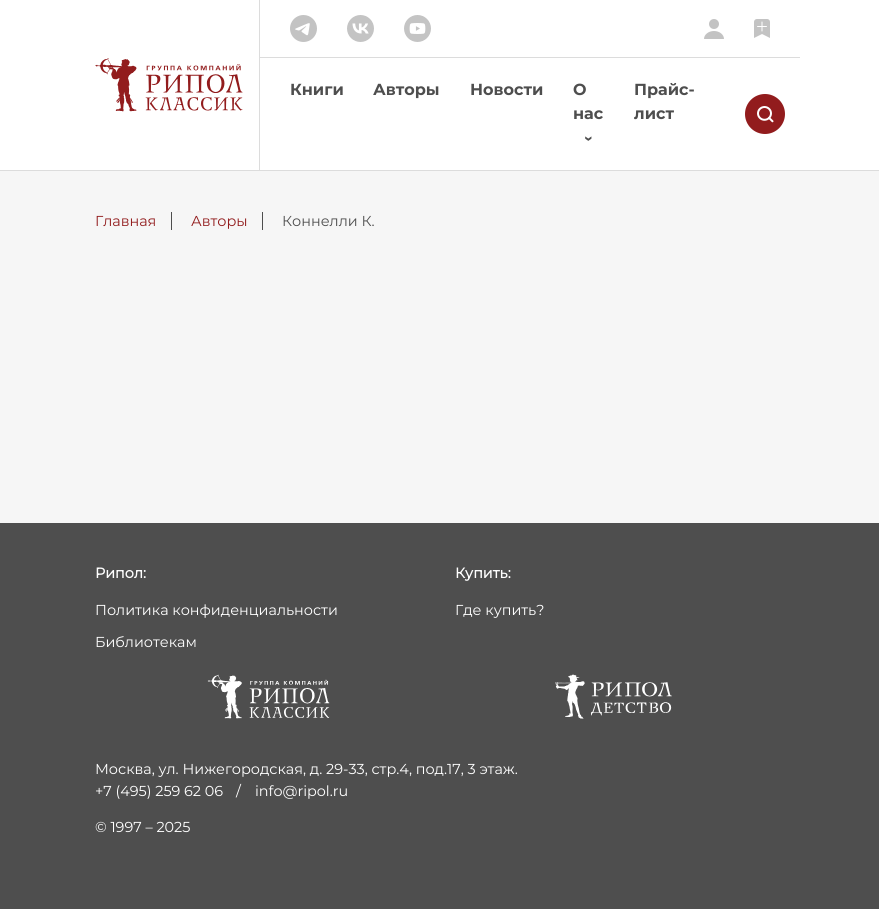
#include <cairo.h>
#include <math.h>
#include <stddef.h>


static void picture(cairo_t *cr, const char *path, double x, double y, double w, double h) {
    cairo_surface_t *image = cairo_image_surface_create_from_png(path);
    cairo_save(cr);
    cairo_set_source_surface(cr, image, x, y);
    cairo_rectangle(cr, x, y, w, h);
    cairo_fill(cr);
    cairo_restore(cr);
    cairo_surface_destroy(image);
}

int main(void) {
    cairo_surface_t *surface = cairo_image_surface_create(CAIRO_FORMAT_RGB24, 879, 909);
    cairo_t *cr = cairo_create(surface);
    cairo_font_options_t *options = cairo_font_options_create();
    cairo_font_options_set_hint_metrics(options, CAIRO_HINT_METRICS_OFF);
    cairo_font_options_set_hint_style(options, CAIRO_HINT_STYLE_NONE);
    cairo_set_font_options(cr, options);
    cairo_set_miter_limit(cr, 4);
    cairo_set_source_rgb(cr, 0.961, 0.961, 0.961);
    cairo_paint(cr);
    cairo_set_source_rgb(cr, 1, 1, 1);
    cairo_rectangle(cr, 0, 0, 879, 170);
    cairo_fill(cr);
    cairo_set_source_rgb(cr, 0.863, 0.863, 0.863);
    cairo_rectangle(cr, 0, 170, 879, 1);
    cairo_fill(cr);
    cairo_rectangle(cr, 259, 0, 1, 170);
    cairo_fill(cr);
    picture(cr, "img1.png", 95, 58, 148, 54);
    picture(cr, "img2.png", 290, 15, 27, 27);
    picture(cr, "img3.png", 347, 15, 27, 27);
    picture(cr, "img4.png", 404, 15, 27, 27);
    picture(cr, "img5.png", 704, 19, 20, 20);
    picture(cr, "img6.png", 754, 19, 16, 19);
    cairo_rectangle(cr, 260, 57, 540, 1);
    cairo_fill(cr);
    cairo_select_font_face(cr, "Montserrat", CAIRO_FONT_SLANT_NORMAL, CAIRO_FONT_WEIGHT_BOLD);
    cairo_set_font_size(cr, 16);
    cairo_set_source_rgb(cr, 0.306, 0.306, 0.306);
    cairo_move_to(cr, 290, 95);
    cairo_show_text(cr, "Книги");
    cairo_move_to(cr, 373, 95);
    cairo_show_text(cr, "Авторы");
    cairo_move_to(cr, 470, 95);
    cairo_show_text(cr, "Новости");
    cairo_move_to(cr, 573, 95);
    cairo_show_text(cr, "О");
    cairo_move_to(cr, 573, 119);
    cairo_show_text(cr, "нас");
    cairo_save(cr);
    cairo_translate(cr, 584, 136);
    cairo_rotate(cr, 90 * M_PI / 180);
    cairo_move_to(cr, 0, 0);
    cairo_show_text(cr, "›");
    cairo_restore(cr);
    cairo_move_to(cr, 634, 95);
    cairo_show_text(cr, "Прайс-");
    cairo_move_to(cr, 634, 119);
    cairo_show_text(cr, "лист");
    picture(cr, "img7.png", 745, 94, 40, 40);
    cairo_select_font_face(cr, "Montserrat", CAIRO_FONT_SLANT_NORMAL, CAIRO_FONT_WEIGHT_NORMAL);
    cairo_set_font_size(cr, 14.4);
    cairo_set_source_rgb(cr, 0.573, 0.11, 0.114);
    cairo_move_to(cr, 95, 226);
    cairo_show_text(cr, "Главная");
    cairo_set_source_rgb(cr, 0.306, 0.306, 0.306);
    cairo_rectangle(cr, 171, 212, 1, 18);
    cairo_fill(cr);
    cairo_set_source_rgb(cr, 0.573, 0.11, 0.114);
    cairo_move_to(cr, 191, 226);
    cairo_show_text(cr, "Авторы");
    cairo_set_source_rgb(cr, 0.306, 0.306, 0.306);
    cairo_rectangle(cr, 262, 212, 1, 18);
    cairo_fill(cr);
    cairo_move_to(cr, 282, 226);
    cairo_show_text(cr, "Коннелли К.");
    cairo_rectangle(cr, 0, 523, 879, 386);
    cairo_fill(cr);
    cairo_select_font_face(cr, "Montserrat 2", CAIRO_FONT_SLANT_NORMAL, CAIRO_FONT_WEIGHT_BOLD);
    cairo_set_source_rgb(cr, 1, 1, 1);
    cairo_move_to(cr, 95, 578);
    cairo_show_text(cr, "Рипол:");
    cairo_select_font_face(cr, "Montserrat", CAIRO_FONT_SLANT_NORMAL, CAIRO_FONT_WEIGHT_NORMAL);
    cairo_move_to(cr, 95, 615);
    cairo_show_text(cr, "Политика конфиденциальности");
    cairo_move_to(cr, 95, 647);
    cairo_show_text(cr, "Библиотекам");
    cairo_select_font_face(cr, "Montserrat 2", CAIRO_FONT_SLANT_NORMAL, CAIRO_FONT_WEIGHT_BOLD);
    cairo_move_to(cr, 455, 578);
    cairo_show_text(cr, "Купить:");
    cairo_select_font_face(cr, "Montserrat", CAIRO_FONT_SLANT_NORMAL, CAIRO_FONT_WEIGHT_NORMAL);
    cairo_move_to(cr, 455, 615);
    cairo_show_text(cr, "Где купить?");
    picture(cr, "img8.png", 207, 674, 123, 45);
    picture(cr, "img9.png", 555, 674, 117, 45);
    cairo_move_to(cr, 95, 774);
    cairo_show_text(cr, "Москва, ул. Нижегородская, д. 29-33, стр.4, под.17, 3 этаж.");
    cairo_move_to(cr, 95, 796);
    cairo_show_text(cr, "+7 (495) 259 62 06");
    cairo_move_to(cr, 236, 796);
    cairo_show_text(cr, "/");
    cairo_move_to(cr, 255, 796);
    cairo_show_text(cr, "info@ripol.ru");
    cairo_move_to(cr, 95, 832);
    cairo_show_text(cr, "© 1997 – 2025");
    cairo_surface_write_to_png(surface, "page.png");
    cairo_font_options_destroy(options);
    cairo_destroy(cr);
    cairo_surface_destroy(surface);
    return 0;
}
